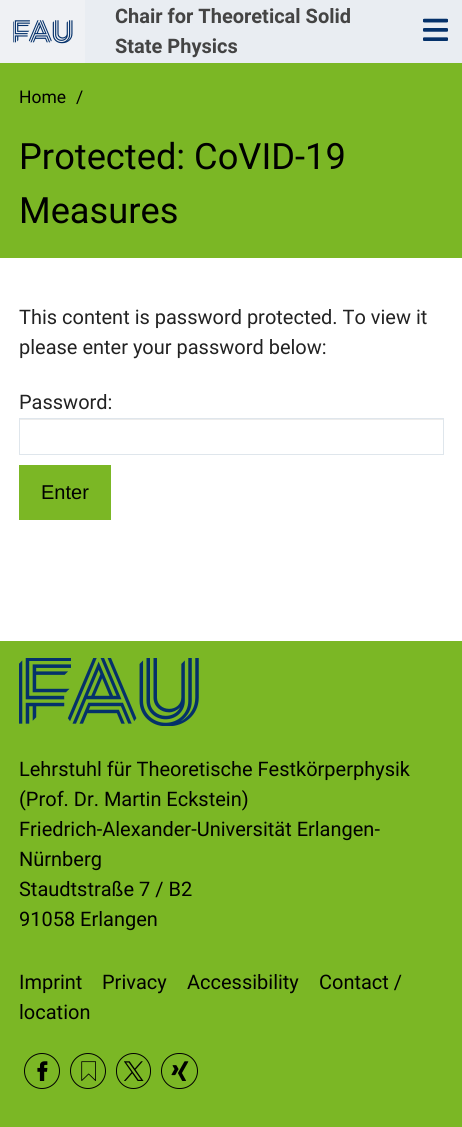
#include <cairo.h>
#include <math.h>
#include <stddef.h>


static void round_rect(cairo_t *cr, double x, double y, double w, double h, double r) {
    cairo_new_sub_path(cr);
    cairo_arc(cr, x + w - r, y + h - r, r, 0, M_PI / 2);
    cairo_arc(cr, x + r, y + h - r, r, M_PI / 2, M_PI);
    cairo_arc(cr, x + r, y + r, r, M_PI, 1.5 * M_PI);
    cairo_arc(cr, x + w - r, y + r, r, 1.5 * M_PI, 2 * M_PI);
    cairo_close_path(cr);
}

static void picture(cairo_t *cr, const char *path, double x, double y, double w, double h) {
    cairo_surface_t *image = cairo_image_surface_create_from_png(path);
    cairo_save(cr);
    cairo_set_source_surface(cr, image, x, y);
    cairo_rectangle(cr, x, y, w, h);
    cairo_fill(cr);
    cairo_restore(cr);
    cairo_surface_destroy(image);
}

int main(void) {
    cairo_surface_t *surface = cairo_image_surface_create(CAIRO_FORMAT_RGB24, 462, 1127);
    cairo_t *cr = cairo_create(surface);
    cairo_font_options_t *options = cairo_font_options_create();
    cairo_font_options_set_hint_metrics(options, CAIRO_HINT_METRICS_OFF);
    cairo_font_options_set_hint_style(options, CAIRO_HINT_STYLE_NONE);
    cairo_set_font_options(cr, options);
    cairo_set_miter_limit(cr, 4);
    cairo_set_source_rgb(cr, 1, 1, 1);
    cairo_paint(cr);
    cairo_set_source_rgb(cr, 0.914, 0.929, 0.949);
    cairo_rectangle(cr, 85, 0, 377, 63);
    cairo_fill(cr);
    cairo_set_source_rgb(cr, 0.937, 0.945, 0.957);
    cairo_rectangle(cr, 0, 0, 85, 63);
    cairo_fill(cr);
    picture(cr, "img1.png", 13, 20, 60, 24);
    cairo_select_font_face(cr, "Roboto", CAIRO_FONT_SLANT_NORMAL, CAIRO_FONT_WEIGHT_BOLD);
    cairo_set_font_size(cr, 20);
    cairo_set_source_rgb(cr, 0.267, 0.267, 0.267);
    cairo_move_to(cr, 115, 23);
    cairo_show_text(cr, "Chair for Theoretical Solid");
    cairo_move_to(cr, 115, 53);
    cairo_show_text(cr, "State Physics");
    picture(cr, "img2.png", 423, 18, 25, 23);
    cairo_set_source_rgb(cr, 0.482, 0.718, 0.145);
    cairo_rectangle(cr, 0, 63, 462, 195);
    cairo_fill(cr);
    cairo_select_font_face(cr, "Roboto", CAIRO_FONT_SLANT_NORMAL, CAIRO_FONT_WEIGHT_NORMAL);
    cairo_set_font_size(cr, 17.5);
    cairo_set_source_rgb(cr, 0, 0, 0);
    cairo_move_to(cr, 19, 103);
    cairo_show_text(cr, "Home");
    cairo_move_to(cr, 76, 103);
    cairo_show_text(cr, "/");
    cairo_set_font_size(cr, 36.25);
    cairo_move_to(cr, 19, 169);
    cairo_show_text(cr, "Protected: CoVID-19");
    cairo_move_to(cr, 19, 223);
    cairo_show_text(cr, "Measures");
    cairo_set_font_size(cr, 20);
    cairo_set_source_rgb(cr, 0.133, 0.133, 0.133);
    cairo_move_to(cr, 19, 324);
    cairo_show_text(cr, "This content is password protected. To view it");
    cairo_move_to(cr, 19, 354);
    cairo_show_text(cr, "please enter your password below:");
    cairo_move_to(cr, 19, 409);
    cairo_show_text(cr, "Password:");
    cairo_set_source_rgb(cr, 0.925, 0.925, 0.925);
    cairo_rectangle(cr, 20, 419, 423, 1);
    cairo_fill(cr);
    cairo_rectangle(cr, 19.5, 418.5, 424, 36);
    cairo_set_source_rgb(cr, 0.875, 0.902, 0.925);
    cairo_set_line_width(cr, 1);
    cairo_stroke(cr);
    cairo_set_source_rgb(cr, 0.482, 0.718, 0.145);
    cairo_rectangle(cr, 19, 465, 92, 55);
    cairo_fill(cr);
    cairo_select_font_face(cr, "Liberation Sans", CAIRO_FONT_SLANT_NORMAL, CAIRO_FONT_WEIGHT_NORMAL);
    cairo_set_source_rgb(cr, 0, 0, 0);
    cairo_move_to(cr, 41, 499);
    cairo_show_text(cr, "Enter");
    cairo_set_source_rgb(cr, 0.482, 0.718, 0.145);
    cairo_rectangle(cr, 0, 641, 462, 486);
    cairo_fill(cr);
    picture(cr, "img3.png", 19, 658, 180, 68);
    cairo_select_font_face(cr, "Roboto", CAIRO_FONT_SLANT_NORMAL, CAIRO_FONT_WEIGHT_NORMAL);
    cairo_set_source_rgb(cr, 0, 0, 0);
    cairo_move_to(cr, 19, 776);
    cairo_show_text(cr, "Lehrstuhl für Theoretische Festkörperphysik");
    cairo_move_to(cr, 19, 806);
    cairo_show_text(cr, "(Prof. Dr. Martin Eckstein)");
    cairo_move_to(cr, 19, 836);
    cairo_show_text(cr, "Friedrich-Alexander-Universität Erlangen-");
    cairo_move_to(cr, 19, 866);
    cairo_show_text(cr, "Nürnberg");
    cairo_move_to(cr, 19, 896);
    cairo_show_text(cr, "Staudtstraße 7 / B2");
    cairo_move_to(cr, 19, 926);
    cairo_show_text(cr, "91058 Erlangen");
    cairo_move_to(cr, 19, 989);
    cairo_show_text(cr, "Imprint");
    cairo_move_to(cr, 102, 989);
    cairo_show_text(cr, "Privacy");
    cairo_move_to(cr, 187, 989);
    cairo_show_text(cr, "Accessibility");
    cairo_move_to(cr, 319, 989);
    cairo_show_text(cr, "Contact /");
    cairo_move_to(cr, 19, 1019);
    cairo_show_text(cr, "location");
    cairo_new_path(cr);
    cairo_arc(cr, 42, 1071, 17.5, 0, 2 * M_PI);
    cairo_stroke(cr);
    picture(cr, "img4.png", 37, 1061, 11, 20);
    cairo_arc(cr, 88, 1071, 17.5, 0, 2 * M_PI);
    cairo_stroke(cr);
    picture(cr, "img5.png", 81, 1061, 15, 20);
    round_rect(cr, 116.5, 1053.5, 34, 35, 17);
    cairo_stroke(cr);
    picture(cr, "img6.png", 124, 1061, 20, 20);
    round_rect(cr, 161.5, 1053.5, 36, 35, 17.5);
    cairo_stroke(cr);
    picture(cr, "img7.png", 171, 1061, 18, 20);
    cairo_surface_write_to_png(surface, "page.png");
    cairo_font_options_destroy(options);
    cairo_destroy(cr);
    cairo_surface_destroy(surface);
    return 0;
}
